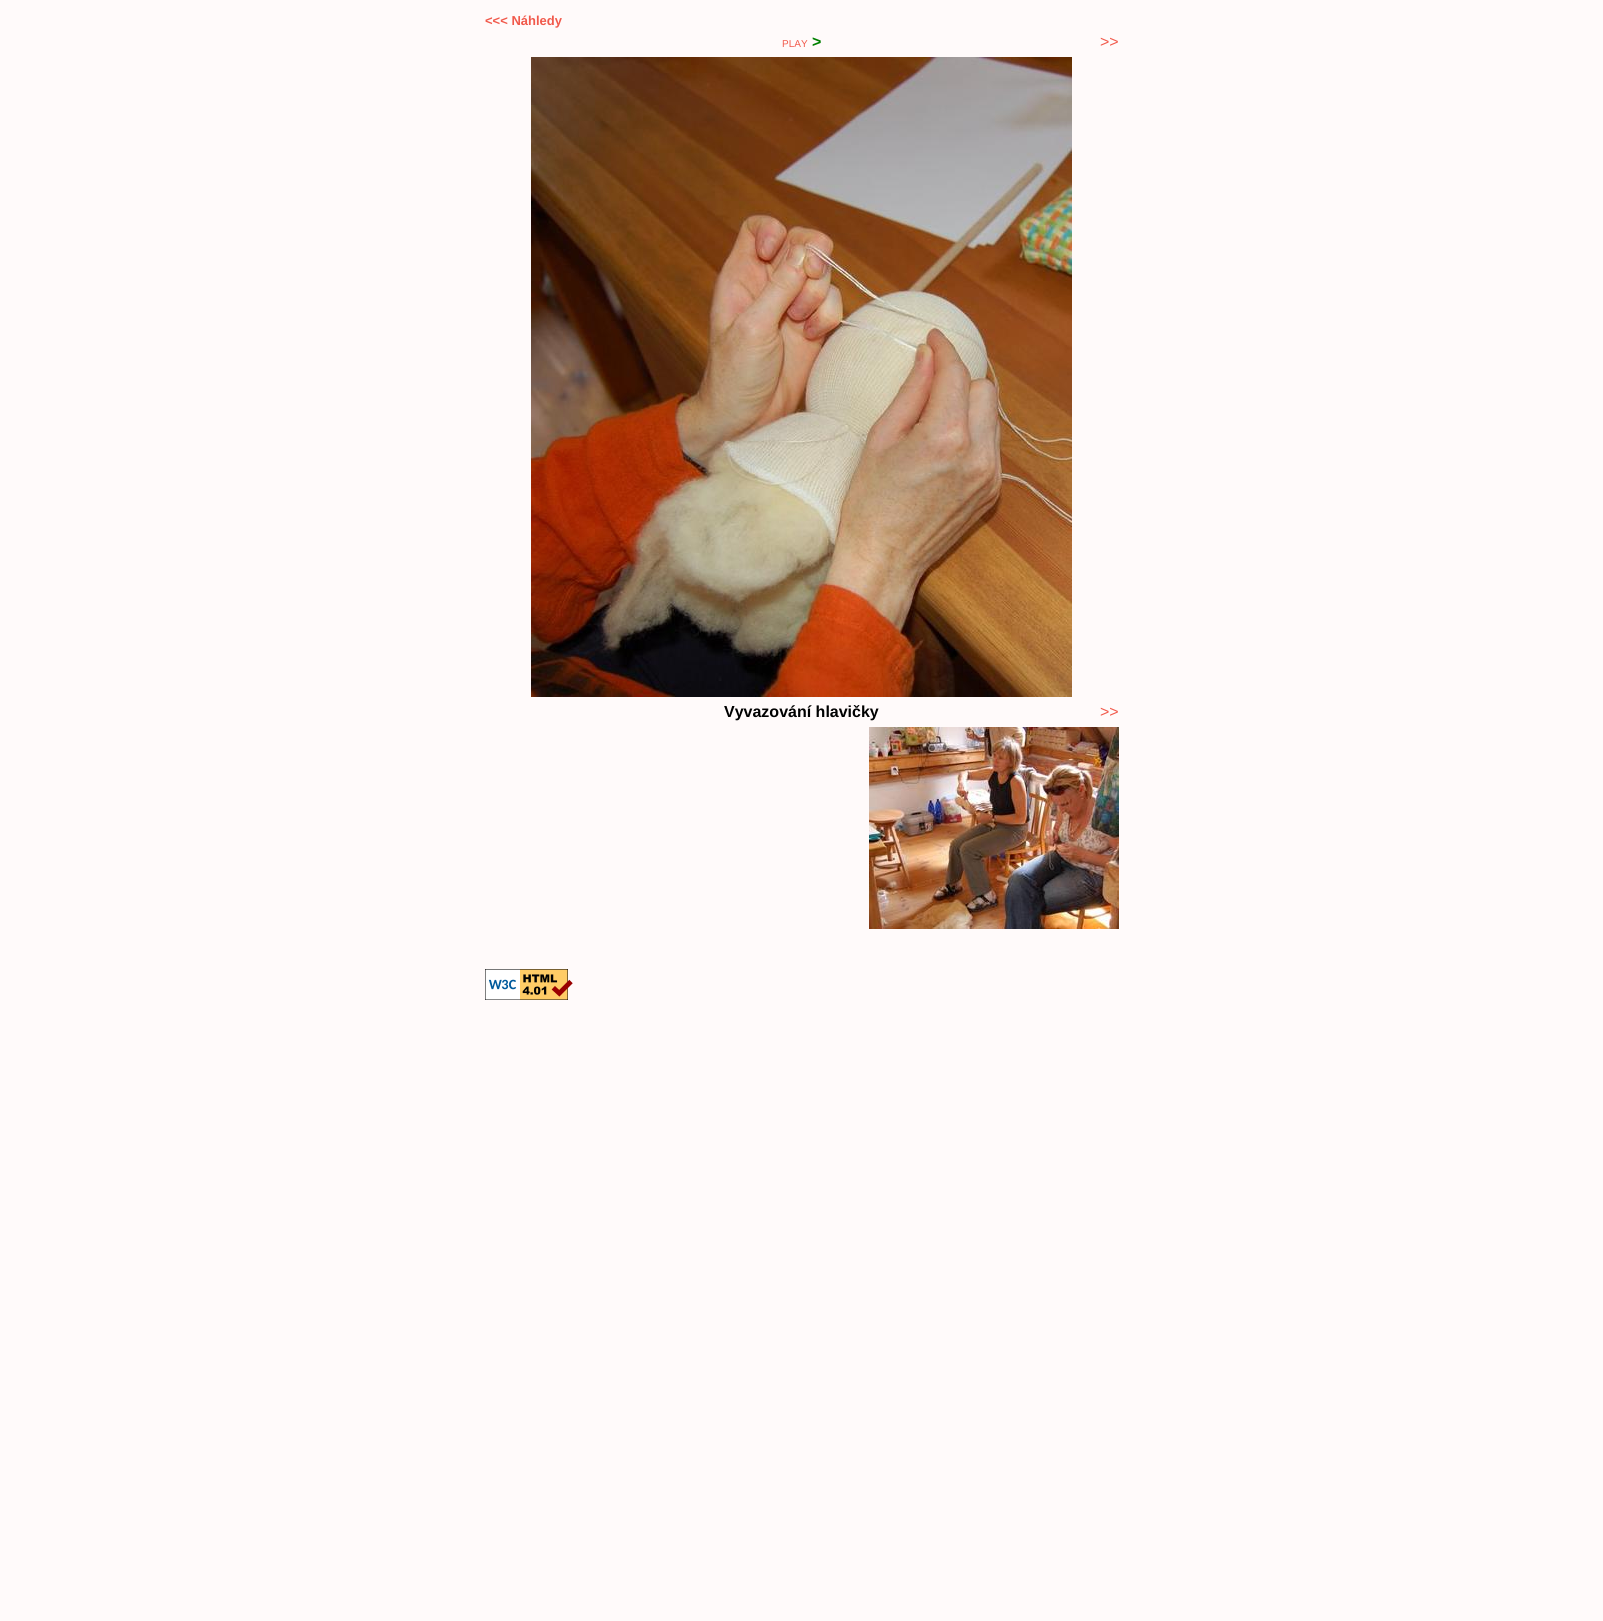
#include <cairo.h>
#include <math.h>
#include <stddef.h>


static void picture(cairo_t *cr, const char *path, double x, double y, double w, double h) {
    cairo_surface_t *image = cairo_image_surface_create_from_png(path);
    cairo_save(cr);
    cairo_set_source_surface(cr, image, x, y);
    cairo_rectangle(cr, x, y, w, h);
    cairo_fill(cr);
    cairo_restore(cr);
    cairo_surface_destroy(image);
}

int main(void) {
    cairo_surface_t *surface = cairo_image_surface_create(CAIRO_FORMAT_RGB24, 1603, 1621);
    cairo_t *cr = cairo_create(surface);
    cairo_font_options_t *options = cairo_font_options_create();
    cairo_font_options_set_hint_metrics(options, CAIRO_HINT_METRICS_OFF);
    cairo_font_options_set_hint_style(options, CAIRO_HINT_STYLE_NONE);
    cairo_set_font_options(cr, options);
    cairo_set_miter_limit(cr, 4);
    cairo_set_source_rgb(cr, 1, 0.98, 0.98);
    cairo_paint(cr);
    cairo_select_font_face(cr, "Liberation Sans", CAIRO_FONT_SLANT_NORMAL, CAIRO_FONT_WEIGHT_BOLD);
    cairo_set_font_size(cr, 13);
    cairo_set_source_rgb(cr, 0.945, 0.349, 0.294);
    cairo_move_to(cr, 485, 25);
    cairo_show_text(cr, "<<< Náhledy");
    cairo_select_font_face(cr, "Liberation Sans", CAIRO_FONT_SLANT_NORMAL, CAIRO_FONT_WEIGHT_NORMAL);
    cairo_set_font_size(cr, 10);
    cairo_move_to(cr, 782, 47);
    cairo_show_text(cr, "PLAY");
    cairo_select_font_face(cr, "Liberation Sans", CAIRO_FONT_SLANT_NORMAL, CAIRO_FONT_WEIGHT_BOLD);
    cairo_set_font_size(cr, 16);
    cairo_set_source_rgb(cr, 0, 0.502, 0);
    cairo_move_to(cr, 812, 47);
    cairo_show_text(cr, ">");
    cairo_select_font_face(cr, "Liberation Sans", CAIRO_FONT_SLANT_NORMAL, CAIRO_FONT_WEIGHT_NORMAL);
    cairo_set_source_rgb(cr, 0.945, 0.349, 0.294);
    cairo_move_to(cr, 1100, 47);
    cairo_show_text(cr, ">>");
    picture(cr, "img1.png", 531, 57, 541, 640);
    cairo_select_font_face(cr, "Liberation Sans", CAIRO_FONT_SLANT_NORMAL, CAIRO_FONT_WEIGHT_BOLD);
    cairo_set_source_rgb(cr, 0, 0, 0);
    cairo_move_to(cr, 724, 717);
    cairo_show_text(cr, "Vyvazování hlavičky");
    cairo_select_font_face(cr, "Liberation Sans", CAIRO_FONT_SLANT_NORMAL, CAIRO_FONT_WEIGHT_NORMAL);
    cairo_set_source_rgb(cr, 0.945, 0.349, 0.294);
    cairo_move_to(cr, 1100, 717);
    cairo_show_text(cr, ">>");
    picture(cr, "img2.png", 869, 727, 250, 202);
    picture(cr, "img3.png", 485, 969, 88, 31);
    cairo_surface_write_to_png(surface, "page.png");
    cairo_font_options_destroy(options);
    cairo_destroy(cr);
    cairo_surface_destroy(surface);
    return 0;
}
